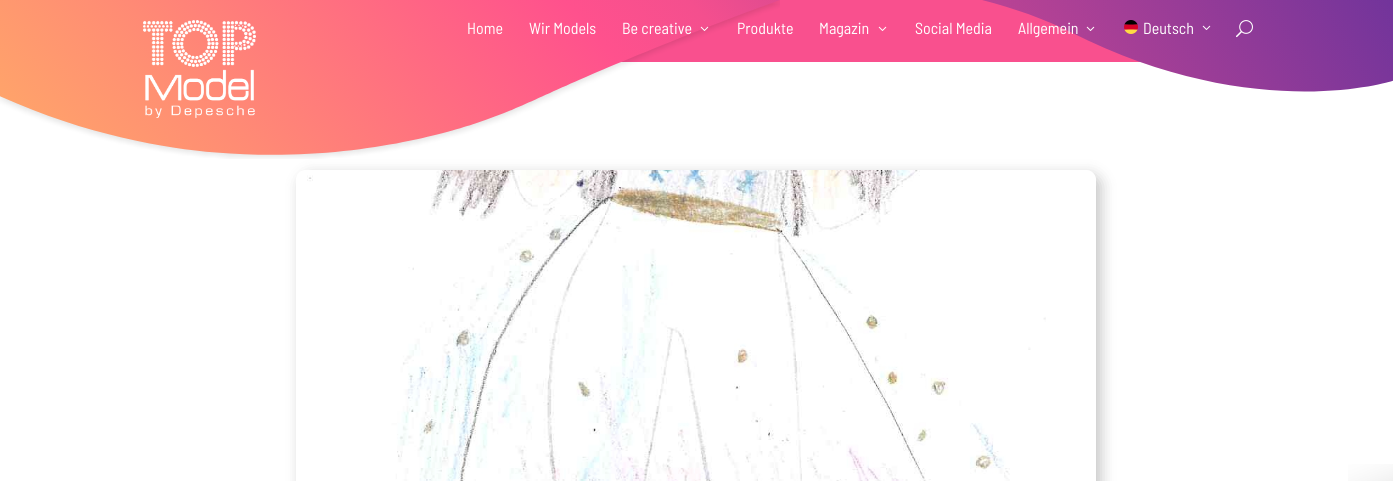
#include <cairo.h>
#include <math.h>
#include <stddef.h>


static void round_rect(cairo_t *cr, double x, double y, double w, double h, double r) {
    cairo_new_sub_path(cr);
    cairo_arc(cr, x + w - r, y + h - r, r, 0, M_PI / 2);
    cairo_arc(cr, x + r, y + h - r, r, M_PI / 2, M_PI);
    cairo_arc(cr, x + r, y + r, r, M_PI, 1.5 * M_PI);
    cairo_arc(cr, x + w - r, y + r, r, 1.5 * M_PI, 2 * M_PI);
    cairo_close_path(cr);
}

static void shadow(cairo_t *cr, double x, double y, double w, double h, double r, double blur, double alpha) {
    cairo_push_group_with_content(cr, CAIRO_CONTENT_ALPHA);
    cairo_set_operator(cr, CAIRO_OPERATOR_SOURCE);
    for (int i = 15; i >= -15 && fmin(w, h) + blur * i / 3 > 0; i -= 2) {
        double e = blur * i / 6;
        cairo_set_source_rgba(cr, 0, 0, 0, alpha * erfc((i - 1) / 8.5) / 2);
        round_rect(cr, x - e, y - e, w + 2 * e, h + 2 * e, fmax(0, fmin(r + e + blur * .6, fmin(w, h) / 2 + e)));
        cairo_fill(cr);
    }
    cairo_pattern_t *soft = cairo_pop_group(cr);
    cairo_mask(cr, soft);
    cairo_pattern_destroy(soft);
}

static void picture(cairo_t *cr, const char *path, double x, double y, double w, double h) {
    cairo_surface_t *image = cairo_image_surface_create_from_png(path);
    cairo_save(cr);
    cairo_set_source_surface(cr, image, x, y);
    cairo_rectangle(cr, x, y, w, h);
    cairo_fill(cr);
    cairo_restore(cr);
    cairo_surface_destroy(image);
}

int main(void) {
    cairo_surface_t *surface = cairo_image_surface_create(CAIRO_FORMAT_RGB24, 1393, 481);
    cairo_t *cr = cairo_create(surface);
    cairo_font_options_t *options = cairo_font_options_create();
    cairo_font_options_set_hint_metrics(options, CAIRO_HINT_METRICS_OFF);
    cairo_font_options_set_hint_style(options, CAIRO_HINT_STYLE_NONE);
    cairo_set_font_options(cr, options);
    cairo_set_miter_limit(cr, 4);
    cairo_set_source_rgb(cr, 1, 1, 1);
    cairo_paint(cr);
    cairo_set_source_rgb(cr, 0.973, 0.314, 0.557);
    cairo_rectangle(cr, 621, 0, 519, 62);
    cairo_fill(cr);
    cairo_save(cr);
    cairo_set_fill_rule(cr, CAIRO_FILL_RULE_EVEN_ODD);
    cairo_new_path(cr);
    cairo_move_to(cr, 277, 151);
    cairo_line_to(cr, 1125, 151);
    cairo_line_to(cr, 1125, 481);
    cairo_line_to(cr, 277, 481);
    cairo_close_path(cr);
    cairo_move_to(cr, 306, 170);
    cairo_line_to(cr, 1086, 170);
    cairo_curve_to(cr, 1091.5, 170, 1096, 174.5, 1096, 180);
    cairo_line_to(cr, 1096, 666);
    cairo_curve_to(cr, 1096, 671.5, 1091.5, 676, 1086, 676);
    cairo_line_to(cr, 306, 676);
    cairo_curve_to(cr, 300.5, 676, 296, 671.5, 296, 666);
    cairo_line_to(cr, 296, 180);
    cairo_curve_to(cr, 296, 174.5, 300.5, 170, 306, 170);
    cairo_close_path(cr);
    cairo_clip(cr);
    cairo_set_source_rgb(cr, 0, 0, 0);
    shadow(cr, 301, 175, 800, 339, 10, 7.5, 0.23);
    cairo_restore(cr);
    picture(cr, "img1.png", 0, 0, 780, 159);
    picture(cr, "img2.png", 982, 0, 411, 92);
    picture(cr, "img3.png", 143, 20, 113, 98);
    cairo_select_font_face(cr, "Barlow Semi Condensed", CAIRO_FONT_SLANT_NORMAL, CAIRO_FONT_WEIGHT_NORMAL);
    cairo_set_font_size(cr, 16);
    cairo_set_source_rgb(cr, 1, 1, 1);
    cairo_move_to(cr, 467, 34);
    cairo_show_text(cr, "Home");
    cairo_move_to(cr, 529, 34);
    cairo_show_text(cr, "Wir Models");
    cairo_move_to(cr, 622, 34);
    cairo_show_text(cr, "Be creative");
    picture(cr, "img4.png", 700, 26, 9, 5);
    cairo_move_to(cr, 737, 34);
    cairo_show_text(cr, "Produkte");
    cairo_move_to(cr, 819, 34);
    cairo_show_text(cr, "Magazin");
    picture(cr, "img5.png", 878, 26, 9, 5);
    cairo_move_to(cr, 915, 34);
    cairo_show_text(cr, "Social Media");
    cairo_move_to(cr, 1018, 34);
    cairo_show_text(cr, "Allgemein");
    picture(cr, "img6.png", 1086, 26, 9, 5);
    picture(cr, "img7.png", 1124, 20, 14, 14);
    cairo_move_to(cr, 1143, 34);
    cairo_show_text(cr, "Deutsch");
    picture(cr, "img8.png", 1202, 25, 9, 5);
    picture(cr, "img9.png", 1236, 20, 17, 18);
    picture(cr, "img10.png", 1348, 464, 45, 17);
    picture(cr, "img11.png", 307, 170, 739, 311);
    cairo_surface_write_to_png(surface, "page.png");
    cairo_font_options_destroy(options);
    cairo_destroy(cr);
    cairo_surface_destroy(surface);
    return 0;
}
